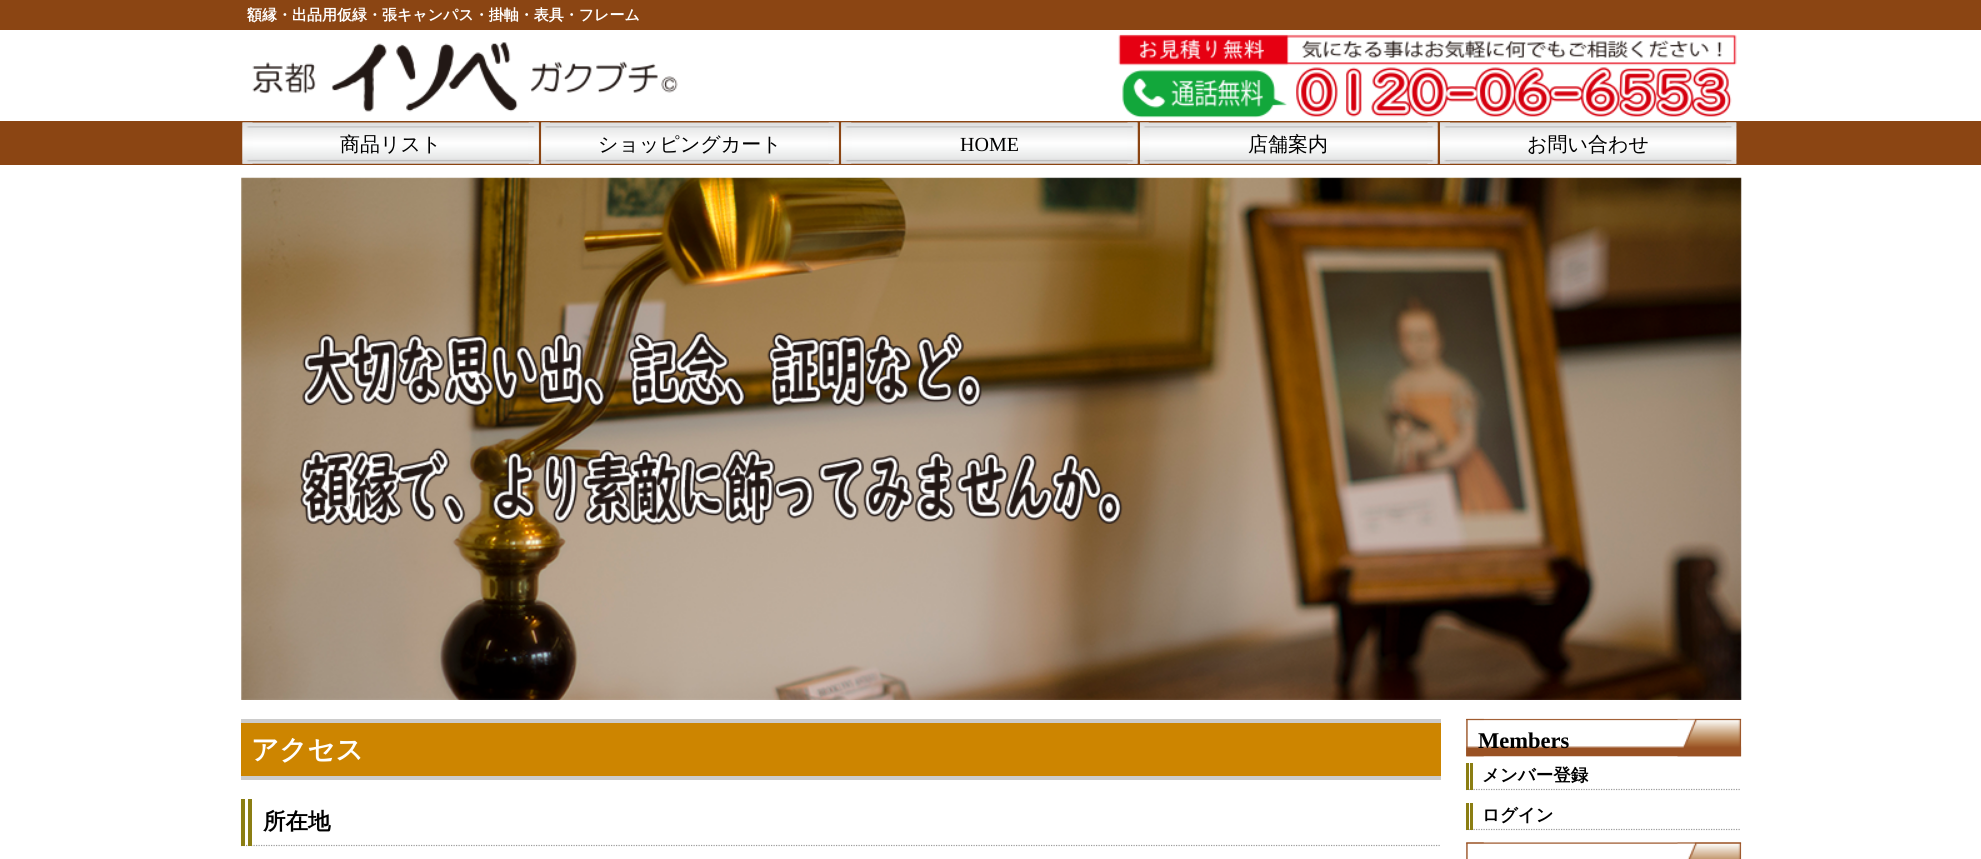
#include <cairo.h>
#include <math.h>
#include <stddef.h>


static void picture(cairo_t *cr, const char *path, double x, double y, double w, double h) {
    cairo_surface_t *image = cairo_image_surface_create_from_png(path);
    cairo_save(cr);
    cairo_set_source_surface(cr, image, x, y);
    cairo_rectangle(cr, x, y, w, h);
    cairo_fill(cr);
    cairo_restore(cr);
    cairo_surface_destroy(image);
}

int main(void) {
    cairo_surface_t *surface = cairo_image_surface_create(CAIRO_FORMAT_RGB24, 1981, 859);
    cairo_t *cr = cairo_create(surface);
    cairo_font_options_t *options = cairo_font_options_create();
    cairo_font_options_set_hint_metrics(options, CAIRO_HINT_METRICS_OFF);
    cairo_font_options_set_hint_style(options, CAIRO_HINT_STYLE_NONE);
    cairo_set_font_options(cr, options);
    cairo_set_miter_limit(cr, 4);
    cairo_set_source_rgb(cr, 1, 1, 1);
    cairo_paint(cr);
    cairo_set_source_rgb(cr, 0.545, 0.271, 0.075);
    cairo_rectangle(cr, 0, 0, 1981, 30);
    cairo_fill(cr);
    cairo_select_font_face(cr, "WenQuanYi Zen Hei", CAIRO_FONT_SLANT_NORMAL, CAIRO_FONT_WEIGHT_BOLD);
    cairo_set_font_size(cr, 15);
    cairo_set_source_rgb(cr, 1, 1, 1);
    cairo_move_to(cr, 247, 20);
    cairo_show_text(cr, "額縁・出品用仮緑・張キャンパス・掛軸・表具・フレーム");
    picture(cr, "img1.png", 252, 42, 426, 70);
    picture(cr, "img2.png", 1118, 34, 619, 84);
    cairo_set_source_rgb(cr, 0.545, 0.271, 0.075);
    cairo_rectangle(cr, 0, 121, 1981, 44);
    cairo_fill(cr);
    picture(cr, "img3.png", 242, 122, 297, 42);
    cairo_select_font_face(cr, "WenQuanYi Zen Hei Medium", CAIRO_FONT_SLANT_NORMAL, CAIRO_FONT_WEIGHT_NORMAL);
    cairo_set_font_size(cr, 20);
    cairo_set_source_rgb(cr, 0, 0, 0);
    cairo_move_to(cr, 340, 151);
    cairo_show_text(cr, "商品リスト");
    picture(cr, "img4.png", 541, 122, 298, 42);
    cairo_move_to(cr, 598, 151);
    cairo_show_text(cr, "ショッピングカート");
    picture(cr, "img5.png", 841, 122, 297, 42);
    cairo_select_font_face(cr, "Liberation Serif", CAIRO_FONT_SLANT_NORMAL, CAIRO_FONT_WEIGHT_NORMAL);
    cairo_move_to(cr, 960, 151);
    cairo_show_text(cr, "HOME");
    picture(cr, "img6.png", 1140, 122, 298, 42);
    cairo_select_font_face(cr, "WenQuanYi Zen Hei Medium", CAIRO_FONT_SLANT_NORMAL, CAIRO_FONT_WEIGHT_NORMAL);
    cairo_move_to(cr, 1248, 151);
    cairo_show_text(cr, "店舗案内");
    picture(cr, "img7.png", 1440, 122, 297, 42);
    cairo_move_to(cr, 1527, 151);
    cairo_show_text(cr, "お問い合わせ");
    picture(cr, "img8.png", 241, 177, 1501, 523);
    cairo_set_source_rgb(cr, 0.804, 0.522, 0);
    cairo_rectangle(cr, 241, 723, 1200, 53);
    cairo_fill(cr);
    cairo_set_source_rgb(cr, 0.8, 0.8, 0.8);
    cairo_rectangle(cr, 241, 719, 1200, 4);
    cairo_fill(cr);
    cairo_rectangle(cr, 241, 776, 1200, 4);
    cairo_fill(cr);
    cairo_select_font_face(cr, "WenQuanYi Zen Hei", CAIRO_FONT_SLANT_NORMAL, CAIRO_FONT_WEIGHT_BOLD);
    cairo_set_font_size(cr, 27.5);
    cairo_set_source_rgb(cr, 1, 1, 1);
    cairo_move_to(cr, 251, 759);
    cairo_show_text(cr, "アクセス");
    cairo_new_path(cr);
    cairo_move_to(cr, 241, 845.5);
    cairo_line_to(cr, 1441, 845.5);
    cairo_set_source_rgb(cr, 0.612, 0.612, 0.612);
    cairo_set_line_width(cr, 1.2);
    cairo_set_dash(cr, (double[]){1.25, 1.25}, 2, 0);
    cairo_stroke(cr);
    cairo_set_source_rgb(cr, 0.545, 0.494, 0.075);
    cairo_rectangle(cr, 241, 799, 4, 47);
    cairo_fill(cr);
    cairo_rectangle(cr, 248, 799, 4, 47);
    cairo_fill(cr);
    cairo_set_font_size(cr, 22.5);
    cairo_set_source_rgb(cr, 0, 0, 0);
    cairo_move_to(cr, 263, 829);
    cairo_show_text(cr, "所在地");
    picture(cr, "img9.png", 1466, 718, 276, 39);
    cairo_select_font_face(cr, "Liberation Serif", CAIRO_FONT_SLANT_NORMAL, CAIRO_FONT_WEIGHT_BOLD);
    cairo_move_to(cr, 1478, 748);
    cairo_show_text(cr, "Members");
    cairo_new_path(cr);
    cairo_move_to(cr, 1466, 789.5);
    cairo_line_to(cr, 1741, 789.5);
    cairo_set_source_rgb(cr, 0.612, 0.612, 0.612);
    cairo_stroke(cr);
    cairo_set_source_rgb(cr, 0.545, 0.494, 0.075);
    cairo_rectangle(cr, 1466, 763, 3, 27);
    cairo_fill(cr);
    cairo_rectangle(cr, 1470, 763, 3, 27);
    cairo_fill(cr);
    cairo_select_font_face(cr, "WenQuanYi Zen Hei", CAIRO_FONT_SLANT_NORMAL, CAIRO_FONT_WEIGHT_BOLD);
    cairo_set_font_size(cr, 17.5);
    cairo_set_source_rgb(cr, 0, 0, 0);
    cairo_move_to(cr, 1482, 781);
    cairo_show_text(cr, "メンバー登録");
    cairo_new_path(cr);
    cairo_move_to(cr, 1466, 829.5);
    cairo_line_to(cr, 1741, 829.5);
    cairo_set_source_rgb(cr, 0.612, 0.612, 0.612);
    cairo_stroke(cr);
    cairo_set_source_rgb(cr, 0.545, 0.494, 0.075);
    cairo_rectangle(cr, 1466, 803, 3, 27);
    cairo_fill(cr);
    cairo_rectangle(cr, 1470, 803, 3, 27);
    cairo_fill(cr);
    cairo_set_source_rgb(cr, 0, 0, 0);
    cairo_move_to(cr, 1482, 821);
    cairo_show_text(cr, "ログイン");
    picture(cr, "img10.png", 1466, 842, 276, 17);
    cairo_surface_write_to_png(surface, "page.png");
    cairo_font_options_destroy(options);
    cairo_destroy(cr);
    cairo_surface_destroy(surface);
    return 0;
}
